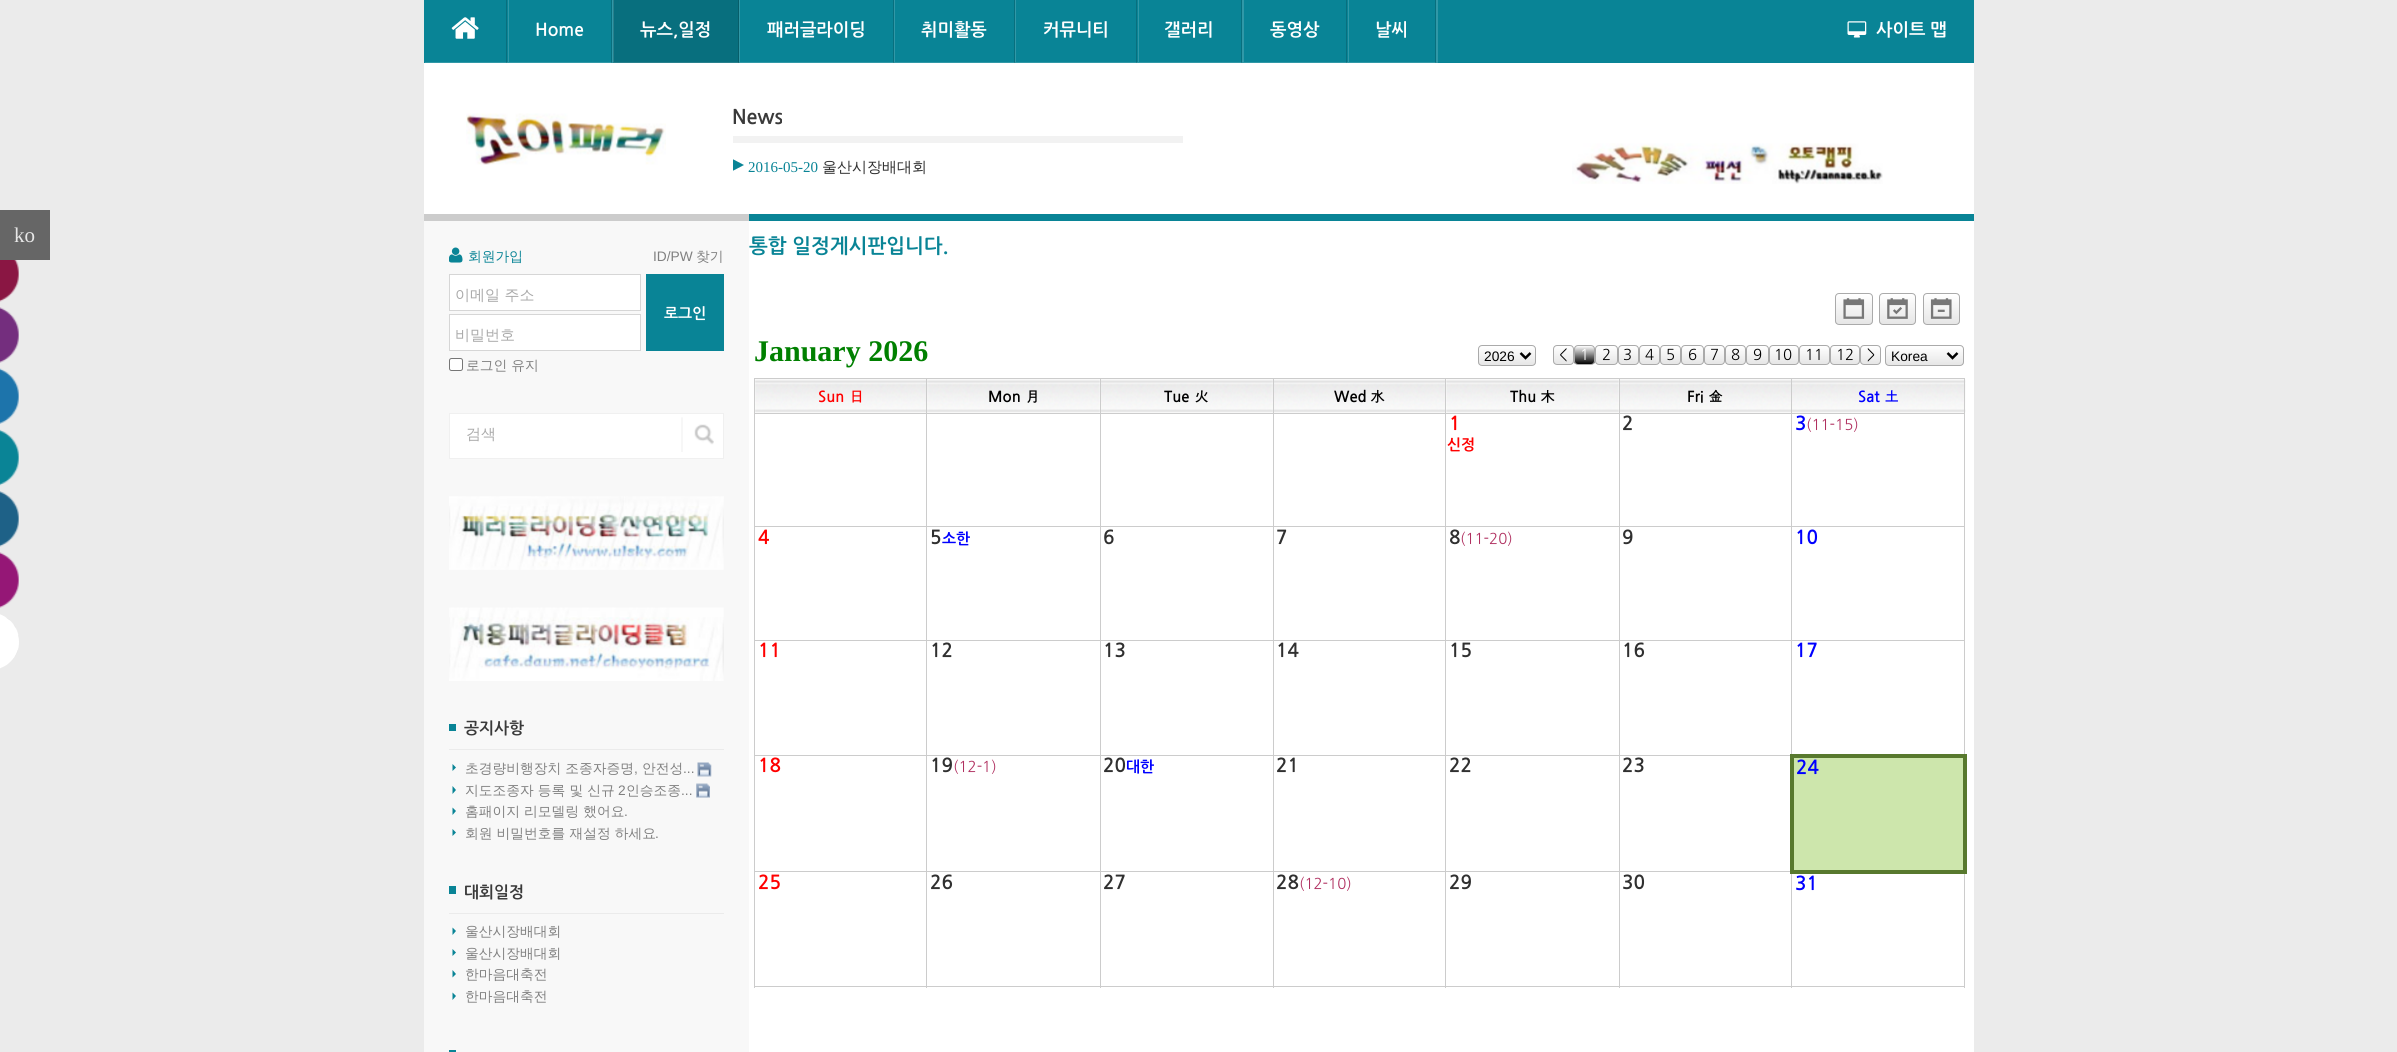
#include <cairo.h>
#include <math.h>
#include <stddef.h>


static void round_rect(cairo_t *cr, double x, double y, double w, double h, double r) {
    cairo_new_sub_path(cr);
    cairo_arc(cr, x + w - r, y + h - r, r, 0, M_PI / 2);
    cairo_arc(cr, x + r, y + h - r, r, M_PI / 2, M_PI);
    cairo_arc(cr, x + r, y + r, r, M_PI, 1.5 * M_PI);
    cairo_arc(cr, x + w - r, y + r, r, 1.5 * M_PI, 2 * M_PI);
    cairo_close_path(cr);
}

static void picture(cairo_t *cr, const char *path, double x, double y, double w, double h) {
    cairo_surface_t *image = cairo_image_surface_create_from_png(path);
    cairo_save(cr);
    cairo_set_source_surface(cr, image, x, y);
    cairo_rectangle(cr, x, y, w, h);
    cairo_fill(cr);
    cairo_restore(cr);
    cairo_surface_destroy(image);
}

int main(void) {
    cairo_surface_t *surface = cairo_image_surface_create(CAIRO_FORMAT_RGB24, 2397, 1052);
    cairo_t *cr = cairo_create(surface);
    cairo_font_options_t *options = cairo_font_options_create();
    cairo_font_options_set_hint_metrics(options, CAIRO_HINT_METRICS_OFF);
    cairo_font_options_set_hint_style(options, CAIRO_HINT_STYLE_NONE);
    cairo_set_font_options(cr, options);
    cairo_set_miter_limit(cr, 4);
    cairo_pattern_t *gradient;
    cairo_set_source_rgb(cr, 0.918, 0.918, 0.918);
    cairo_paint(cr);
    cairo_set_source_rgb(cr, 0.4, 0.4, 0.4);
    cairo_rectangle(cr, 0, 210, 50, 50);
    cairo_fill(cr);
    cairo_select_font_face(cr, "Liberation Serif", CAIRO_FONT_SLANT_NORMAL, CAIRO_FONT_WEIGHT_NORMAL);
    cairo_set_font_size(cr, 21);
    cairo_set_source_rgb(cr, 0.906, 0.906, 0.906);
    cairo_move_to(cr, 14, 242);
    cairo_show_text(cr, "ko");
    cairo_set_source_rgb(cr, 0.039, 0.518, 0.588);
    cairo_rectangle(cr, 424, 0, 1550, 63);
    cairo_fill(cr);
    cairo_set_source_rgb(cr, 0.192, 0.596, 0.655);
    cairo_new_path(cr);
    cairo_move_to(cr, 425, 62);
    cairo_line_to(cr, 425, 63);
    cairo_line_to(cr, 509, 63);
    cairo_line_to(cr, 509, 0);
    cairo_line_to(cr, 508, 0);
    cairo_line_to(cr, 508, 62);
    cairo_close_path(cr);
    cairo_fill(cr);
    cairo_set_source_rgba(cr, 0, 0, 0, 0.16);
    cairo_rectangle(cr, 506, 0, 1, 63);
    cairo_fill(cr);
    picture(cr, "img1.png", 451, 17, 28, 22);
    cairo_set_source_rgb(cr, 0.192, 0.596, 0.655);
    cairo_new_path(cr);
    cairo_move_to(cr, 509, 62);
    cairo_line_to(cr, 509, 63);
    cairo_line_to(cr, 614, 63);
    cairo_line_to(cr, 614, 0);
    cairo_line_to(cr, 612, 0);
    cairo_line_to(cr, 612, 62);
    cairo_close_path(cr);
    cairo_fill(cr);
    cairo_set_source_rgba(cr, 0, 0, 0, 0.16);
    cairo_rectangle(cr, 611, 0, 1, 63);
    cairo_fill(cr);
    cairo_select_font_face(cr, "NanumGothic", CAIRO_FONT_SLANT_NORMAL, CAIRO_FONT_WEIGHT_BOLD);
    cairo_set_font_size(cr, 17.5);
    cairo_set_source_rgb(cr, 1, 1, 1);
    cairo_move_to(cr, 535, 35);
    cairo_show_text(cr, "Home");
    cairo_set_source_rgb(cr, 0.192, 0.596, 0.655);
    cairo_new_path(cr);
    cairo_move_to(cr, 614, 62);
    cairo_line_to(cr, 614, 63);
    cairo_line_to(cr, 740, 63);
    cairo_line_to(cr, 740, 0);
    cairo_line_to(cr, 739, 0);
    cairo_line_to(cr, 739, 62);
    cairo_close_path(cr);
    cairo_fill(cr);
    cairo_set_source_rgba(cr, 0, 0, 0, 0.16);
    cairo_rectangle(cr, 613, 0, 126, 63);
    cairo_fill(cr);
    cairo_rectangle(cr, 738, 0, 1, 63);
    cairo_fill(cr);
    cairo_set_source_rgb(cr, 1, 1, 1);
    cairo_move_to(cr, 640, 35);
    cairo_show_text(cr, "뉴스,일정");
    cairo_set_source_rgb(cr, 0.192, 0.596, 0.655);
    cairo_new_path(cr);
    cairo_move_to(cr, 740, 62);
    cairo_line_to(cr, 740, 63);
    cairo_line_to(cr, 895, 63);
    cairo_line_to(cr, 895, 0);
    cairo_line_to(cr, 894, 0);
    cairo_line_to(cr, 894, 62);
    cairo_close_path(cr);
    cairo_fill(cr);
    cairo_set_source_rgba(cr, 0, 0, 0, 0.16);
    cairo_rectangle(cr, 893, 0, 1, 63);
    cairo_fill(cr);
    cairo_set_source_rgb(cr, 1, 1, 1);
    cairo_move_to(cr, 767, 35);
    cairo_show_text(cr, "패러글라이딩");
    cairo_set_source_rgb(cr, 0.192, 0.596, 0.655);
    cairo_new_path(cr);
    cairo_move_to(cr, 895, 62);
    cairo_line_to(cr, 895, 63);
    cairo_line_to(cr, 1016, 63);
    cairo_line_to(cr, 1016, 0);
    cairo_line_to(cr, 1015, 0);
    cairo_line_to(cr, 1015, 62);
    cairo_close_path(cr);
    cairo_fill(cr);
    cairo_set_source_rgba(cr, 0, 0, 0, 0.16);
    cairo_rectangle(cr, 1014, 0, 1, 63);
    cairo_fill(cr);
    cairo_set_source_rgb(cr, 1, 1, 1);
    cairo_move_to(cr, 921, 35);
    cairo_show_text(cr, "취미활동");
    cairo_set_source_rgb(cr, 0.192, 0.596, 0.655);
    cairo_new_path(cr);
    cairo_move_to(cr, 1016, 62);
    cairo_line_to(cr, 1016, 63);
    cairo_line_to(cr, 1139, 63);
    cairo_line_to(cr, 1139, 0);
    cairo_line_to(cr, 1138, 0);
    cairo_line_to(cr, 1138, 62);
    cairo_close_path(cr);
    cairo_fill(cr);
    cairo_set_source_rgba(cr, 0, 0, 0, 0.16);
    cairo_rectangle(cr, 1136, 0, 1, 63);
    cairo_fill(cr);
    cairo_set_source_rgb(cr, 1, 1, 1);
    cairo_move_to(cr, 1043, 35);
    cairo_show_text(cr, "커뮤니티");
    cairo_set_source_rgb(cr, 0.192, 0.596, 0.655);
    cairo_new_path(cr);
    cairo_move_to(cr, 1139, 62);
    cairo_line_to(cr, 1139, 63);
    cairo_line_to(cr, 1244, 63);
    cairo_line_to(cr, 1244, 0);
    cairo_line_to(cr, 1242, 0);
    cairo_line_to(cr, 1242, 62);
    cairo_close_path(cr);
    cairo_fill(cr);
    cairo_set_source_rgba(cr, 0, 0, 0, 0.16);
    cairo_rectangle(cr, 1241, 0, 1, 63);
    cairo_fill(cr);
    cairo_set_source_rgb(cr, 1, 1, 1);
    cairo_move_to(cr, 1164, 35);
    cairo_show_text(cr, "갤러리");
    cairo_set_source_rgb(cr, 0.192, 0.596, 0.655);
    cairo_new_path(cr);
    cairo_move_to(cr, 1244, 62);
    cairo_line_to(cr, 1244, 63);
    cairo_line_to(cr, 1349, 63);
    cairo_line_to(cr, 1349, 0);
    cairo_line_to(cr, 1348, 0);
    cairo_line_to(cr, 1348, 62);
    cairo_close_path(cr);
    cairo_fill(cr);
    cairo_set_source_rgba(cr, 0, 0, 0, 0.16);
    cairo_rectangle(cr, 1346, 0, 1, 63);
    cairo_fill(cr);
    cairo_set_source_rgb(cr, 1, 1, 1);
    cairo_move_to(cr, 1270, 35);
    cairo_show_text(cr, "동영상");
    cairo_set_source_rgb(cr, 0.192, 0.596, 0.655);
    cairo_new_path(cr);
    cairo_move_to(cr, 1349, 62);
    cairo_line_to(cr, 1349, 63);
    cairo_line_to(cr, 1438, 63);
    cairo_line_to(cr, 1438, 0);
    cairo_line_to(cr, 1436, 0);
    cairo_line_to(cr, 1436, 62);
    cairo_close_path(cr);
    cairo_fill(cr);
    cairo_set_source_rgba(cr, 0, 0, 0, 0.16);
    cairo_rectangle(cr, 1435, 0, 1, 63);
    cairo_fill(cr);
    cairo_set_source_rgb(cr, 1, 1, 1);
    cairo_move_to(cr, 1375, 35);
    cairo_show_text(cr, "날씨");
    picture(cr, "img2.png", 1847, 21, 20, 17);
    cairo_move_to(cr, 1876, 35);
    cairo_show_text(cr, "사이트 맵");
    cairo_rectangle(cr, 424, 63, 1550, 151);
    cairo_fill(cr);
    picture(cr, "img3.png", 466, 113, 200, 52);
    cairo_set_source_rgb(cr, 0.949, 0.949, 0.949);
    cairo_rectangle(cr, 733, 136, 450, 7);
    cairo_fill(cr);
    cairo_set_font_size(cr, 20);
    cairo_set_source_rgb(cr, 0.227, 0.227, 0.227);
    cairo_move_to(cr, 732, 123);
    cairo_show_text(cr, "News");
    cairo_save(cr);
    cairo_rectangle(cr, 733, 158, 450, 17);
    cairo_clip(cr);
    cairo_set_source_rgb(cr, 0.039, 0.518, 0.588);
    cairo_new_path(cr);
    cairo_move_to(cr, 732.5, 171);
    cairo_line_to(cr, 732.5, 159);
    cairo_line_to(cr, 744, 165);
    cairo_close_path(cr);
    cairo_fill(cr);
    cairo_restore(cr);
    cairo_select_font_face(cr, "Liberation Serif", CAIRO_FONT_SLANT_NORMAL, CAIRO_FONT_WEIGHT_NORMAL);
    cairo_set_font_size(cr, 15);
    cairo_set_source_rgb(cr, 0.039, 0.518, 0.588);
    cairo_move_to(cr, 748, 172);
    cairo_show_text(cr, "2016-05-20");
    cairo_select_font_face(cr, "WenQuanYi Zen Hei Medium", CAIRO_FONT_SLANT_NORMAL, CAIRO_FONT_WEIGHT_NORMAL);
    cairo_set_source_rgb(cr, 0.188, 0.188, 0.188);
    cairo_move_to(cr, 822, 172);
    cairo_show_text(cr, "울산시장배대회");
    picture(cr, "img4.png", 1572, 143, 311, 41);
    cairo_set_source_rgb(cr, 0.969, 0.969, 0.969);
    cairo_rectangle(cr, 424, 221, 325, 831);
    cairo_fill(cr);
    cairo_set_source_rgb(cr, 0.8, 0.8, 0.8);
    cairo_rectangle(cr, 424, 214, 325, 7);
    cairo_fill(cr);
    picture(cr, "img5.png", 449, 247, 14, 16);
    cairo_set_font_size(cr, 13.75);
    cairo_set_source_rgb(cr, 0.039, 0.518, 0.588);
    cairo_move_to(cr, 468, 261);
    cairo_show_text(cr, "회원가입");
    cairo_select_font_face(cr, "Liberation Sans", CAIRO_FONT_SLANT_NORMAL, CAIRO_FONT_WEIGHT_NORMAL);
    cairo_set_source_rgb(cr, 0.502, 0.502, 0.502);
    cairo_move_to(cr, 653, 261);
    cairo_show_text(cr, "ID/PW");
    cairo_select_font_face(cr, "WenQuanYi Zen Hei Medium", CAIRO_FONT_SLANT_NORMAL, CAIRO_FONT_WEIGHT_NORMAL);
    cairo_move_to(cr, 696, 261);
    cairo_show_text(cr, "찾기");
    cairo_set_source_rgb(cr, 1, 1, 1);
    cairo_rectangle(cr, 450, 275, 190, 35);
    cairo_fill(cr);
    cairo_rectangle(cr, 449.5, 274.5, 191, 36);
    cairo_set_source_rgb(cr, 0.839, 0.839, 0.839);
    cairo_set_line_width(cr, 1);
    cairo_stroke(cr);
    cairo_set_font_size(cr, 15);
    cairo_set_source_rgb(cr, 0.667, 0.667, 0.667);
    cairo_move_to(cr, 455, 300);
    cairo_show_text(cr, "이메일 주소");
    cairo_set_source_rgb(cr, 1, 1, 1);
    cairo_rectangle(cr, 450, 315, 190, 35);
    cairo_fill(cr);
    cairo_rectangle(cr, 449.5, 314.5, 191, 36);
    cairo_set_source_rgb(cr, 0.839, 0.839, 0.839);
    cairo_stroke(cr);
    cairo_set_source_rgb(cr, 0.667, 0.667, 0.667);
    cairo_move_to(cr, 455, 340);
    cairo_show_text(cr, "비밀번호");
    cairo_set_source_rgb(cr, 0.039, 0.518, 0.588);
    cairo_rectangle(cr, 646, 274, 78, 77);
    cairo_fill(cr);
    cairo_select_font_face(cr, "NanumGothic", CAIRO_FONT_SLANT_NORMAL, CAIRO_FONT_WEIGHT_BOLD);
    cairo_set_source_rgb(cr, 1, 1, 1);
    cairo_move_to(cr, 664, 318);
    cairo_show_text(cr, "로그인");
    round_rect(cr, 449.5, 358.5, 13, 12, 2);
    cairo_fill_preserve(cr);
    cairo_set_source_rgb(cr, 0.463, 0.463, 0.463);
    cairo_stroke(cr);
    cairo_select_font_face(cr, "WenQuanYi Zen Hei Medium", CAIRO_FONT_SLANT_NORMAL, CAIRO_FONT_WEIGHT_NORMAL);
    cairo_set_font_size(cr, 13.75);
    cairo_set_source_rgb(cr, 0.502, 0.502, 0.502);
    cairo_move_to(cr, 466, 370);
    cairo_show_text(cr, "로그인 유지");
    cairo_set_source_rgb(cr, 1, 1, 1);
    cairo_rectangle(cr, 449.5, 413.5, 274, 45);
    cairo_fill_preserve(cr);
    cairo_set_source_rgb(cr, 0.941, 0.941, 0.941);
    cairo_stroke(cr);
    cairo_set_font_size(cr, 15);
    cairo_set_source_rgb(cr, 0.667, 0.667, 0.667);
    cairo_move_to(cr, 466, 439);
    cairo_show_text(cr, "검색");
    picture(cr, "img6.png", 681, 417, 33, 35);
    picture(cr, "img7.png", 449, 496, 275, 74);
    picture(cr, "img8.png", 449, 607, 275, 74);
    cairo_set_source_rgb(cr, 0.918, 0.918, 0.918);
    cairo_rectangle(cr, 449, 749, 275, 1);
    cairo_fill(cr);
    cairo_set_source_rgb(cr, 0.039, 0.518, 0.588);
    cairo_rectangle(cr, 449, 724, 7, 7);
    cairo_fill(cr);
    cairo_select_font_face(cr, "NanumGothic", CAIRO_FONT_SLANT_NORMAL, CAIRO_FONT_WEIGHT_BOLD);
    cairo_set_font_size(cr, 16);
    cairo_set_source_rgb(cr, 0.227, 0.227, 0.227);
    cairo_move_to(cr, 464, 733);
    cairo_show_text(cr, "공지사항");
    cairo_set_source_rgb(cr, 0.039, 0.518, 0.588);
    cairo_new_path(cr);
    cairo_move_to(cr, 452.5, 771);
    cairo_line_to(cr, 452.5, 764);
    cairo_line_to(cr, 456, 767.5);
    cairo_close_path(cr);
    cairo_fill(cr);
    cairo_select_font_face(cr, "WenQuanYi Zen Hei Medium", CAIRO_FONT_SLANT_NORMAL, CAIRO_FONT_WEIGHT_NORMAL);
    cairo_set_font_size(cr, 13.75);
    cairo_set_source_rgb(cr, 0.502, 0.502, 0.502);
    cairo_move_to(cr, 465, 773);
    cairo_show_text(cr, "초경량비행장치 조종자증명");
    cairo_move_to(cr, 642, 773);
    cairo_show_text(cr, "안전성");
    picture(cr, "img9.png", 697, 762, 15, 15);
    cairo_select_font_face(cr, "Liberation Sans", CAIRO_FONT_SLANT_NORMAL, CAIRO_FONT_WEIGHT_NORMAL);
    cairo_move_to(cr, 634, 773);
    cairo_show_text(cr, ",");
    cairo_move_to(cr, 683, 773);
    cairo_show_text(cr, "...");
    cairo_set_source_rgb(cr, 0.039, 0.518, 0.588);
    cairo_new_path(cr);
    cairo_move_to(cr, 452.5, 794);
    cairo_line_to(cr, 452.5, 786);
    cairo_line_to(cr, 456, 790);
    cairo_close_path(cr);
    cairo_fill(cr);
    cairo_select_font_face(cr, "WenQuanYi Zen Hei Medium", CAIRO_FONT_SLANT_NORMAL, CAIRO_FONT_WEIGHT_NORMAL);
    cairo_set_source_rgb(cr, 0.502, 0.502, 0.502);
    cairo_move_to(cr, 465, 795);
    cairo_show_text(cr, "지도조종자 등록 및 신규");
    cairo_select_font_face(cr, "Liberation Sans", CAIRO_FONT_SLANT_NORMAL, CAIRO_FONT_WEIGHT_NORMAL);
    cairo_move_to(cr, 618, 795);
    cairo_show_text(cr, "2");
    cairo_select_font_face(cr, "WenQuanYi Zen Hei Medium", CAIRO_FONT_SLANT_NORMAL, CAIRO_FONT_WEIGHT_NORMAL);
    cairo_move_to(cr, 626, 795);
    cairo_show_text(cr, "인승조종");
    cairo_select_font_face(cr, "Liberation Sans", CAIRO_FONT_SLANT_NORMAL, CAIRO_FONT_WEIGHT_NORMAL);
    cairo_move_to(cr, 681, 795);
    cairo_show_text(cr, "...");
    picture(cr, "img10.png", 696, 783, 14, 15);
    cairo_set_source_rgb(cr, 0.039, 0.518, 0.588);
    cairo_new_path(cr);
    cairo_move_to(cr, 452.5, 815);
    cairo_line_to(cr, 452.5, 807.5);
    cairo_line_to(cr, 456, 811);
    cairo_close_path(cr);
    cairo_fill(cr);
    cairo_select_font_face(cr, "WenQuanYi Zen Hei Medium", CAIRO_FONT_SLANT_NORMAL, CAIRO_FONT_WEIGHT_NORMAL);
    cairo_set_source_rgb(cr, 0.502, 0.502, 0.502);
    cairo_move_to(cr, 465, 816);
    cairo_show_text(cr, "홈패이지 리모델링 했어요");
    cairo_select_font_face(cr, "Liberation Sans", CAIRO_FONT_SLANT_NORMAL, CAIRO_FONT_WEIGHT_NORMAL);
    cairo_move_to(cr, 624, 816);
    cairo_show_text(cr, ".");
    cairo_set_source_rgb(cr, 0.039, 0.518, 0.588);
    cairo_new_path(cr);
    cairo_move_to(cr, 452.5, 836);
    cairo_line_to(cr, 452.5, 829);
    cairo_line_to(cr, 456, 832.5);
    cairo_close_path(cr);
    cairo_fill(cr);
    cairo_select_font_face(cr, "WenQuanYi Zen Hei Medium", CAIRO_FONT_SLANT_NORMAL, CAIRO_FONT_WEIGHT_NORMAL);
    cairo_set_source_rgb(cr, 0.502, 0.502, 0.502);
    cairo_move_to(cr, 465, 838);
    cairo_show_text(cr, "회원 비밀번호를 재설정 하세요");
    cairo_select_font_face(cr, "Liberation Sans", CAIRO_FONT_SLANT_NORMAL, CAIRO_FONT_WEIGHT_NORMAL);
    cairo_move_to(cr, 655, 838);
    cairo_show_text(cr, ".");
    cairo_set_source_rgb(cr, 0.918, 0.918, 0.918);
    cairo_rectangle(cr, 449, 913, 275, 1);
    cairo_fill(cr);
    cairo_set_source_rgb(cr, 0.039, 0.518, 0.588);
    cairo_rectangle(cr, 449, 886, 7, 8);
    cairo_fill(cr);
    cairo_select_font_face(cr, "NanumGothic", CAIRO_FONT_SLANT_NORMAL, CAIRO_FONT_WEIGHT_BOLD);
    cairo_set_font_size(cr, 16);
    cairo_set_source_rgb(cr, 0.227, 0.227, 0.227);
    cairo_move_to(cr, 464, 897);
    cairo_show_text(cr, "대회일정");
    cairo_set_source_rgb(cr, 0.039, 0.518, 0.588);
    cairo_new_path(cr);
    cairo_move_to(cr, 452.5, 935);
    cairo_line_to(cr, 452.5, 927.5);
    cairo_line_to(cr, 456, 931);
    cairo_close_path(cr);
    cairo_fill(cr);
    cairo_select_font_face(cr, "WenQuanYi Zen Hei Medium", CAIRO_FONT_SLANT_NORMAL, CAIRO_FONT_WEIGHT_NORMAL);
    cairo_set_font_size(cr, 13.75);
    cairo_set_source_rgb(cr, 0.502, 0.502, 0.502);
    cairo_move_to(cr, 465, 936);
    cairo_show_text(cr, "울산시장배대회");
    cairo_set_source_rgb(cr, 0.039, 0.518, 0.588);
    cairo_new_path(cr);
    cairo_move_to(cr, 452.5, 956);
    cairo_line_to(cr, 452.5, 949);
    cairo_line_to(cr, 456, 952.5);
    cairo_close_path(cr);
    cairo_fill(cr);
    cairo_set_source_rgb(cr, 0.502, 0.502, 0.502);
    cairo_move_to(cr, 465, 958);
    cairo_show_text(cr, "울산시장배대회");
    cairo_set_source_rgb(cr, 0.039, 0.518, 0.588);
    cairo_new_path(cr);
    cairo_move_to(cr, 452.5, 977.5);
    cairo_line_to(cr, 452.5, 970);
    cairo_line_to(cr, 456, 974);
    cairo_close_path(cr);
    cairo_fill(cr);
    cairo_set_source_rgb(cr, 0.502, 0.502, 0.502);
    cairo_move_to(cr, 465, 979);
    cairo_show_text(cr, "한마음대축전");
    cairo_set_source_rgb(cr, 0.039, 0.518, 0.588);
    cairo_new_path(cr);
    cairo_move_to(cr, 452.5, 1000);
    cairo_line_to(cr, 452.5, 992.5);
    cairo_line_to(cr, 456, 996);
    cairo_close_path(cr);
    cairo_fill(cr);
    cairo_set_source_rgb(cr, 0.502, 0.502, 0.502);
    cairo_move_to(cr, 465, 1001);
    cairo_show_text(cr, "한마음대축전");
    cairo_set_source_rgb(cr, 0.039, 0.518, 0.588);
    cairo_rectangle(cr, 449, 1050, 7, 2);
    cairo_fill(cr);
    cairo_set_source_rgb(cr, 1, 1, 1);
    cairo_rectangle(cr, 749, 221, 1225, 831);
    cairo_fill(cr);
    cairo_set_source_rgb(cr, 0.039, 0.518, 0.588);
    cairo_rectangle(cr, 749, 214, 1225, 7);
    cairo_fill(cr);
    cairo_select_font_face(cr, "NanumGothic", CAIRO_FONT_SLANT_NORMAL, CAIRO_FONT_WEIGHT_BOLD);
    cairo_set_font_size(cr, 20);
    cairo_move_to(cr, 749, 252);
    cairo_show_text(cr, "통합 일정게시판입니다.");
    cairo_save(cr);
    round_rect(cr, 1835, 293, 38, 32, 4);
    cairo_clip(cr);
    gradient = cairo_pattern_create_linear(1854, 294, 1854, 324);
    cairo_pattern_add_color_stop_rgba(gradient, 0, 1, 1, 1, 1);
    cairo_pattern_add_color_stop_rgba(gradient, 1, 0.902, 0.902, 0.902, 1);
    cairo_set_source(cr, gradient);
    cairo_pattern_destroy(gradient);
    cairo_rectangle(cr, 1835, 294, 38, 30);
    cairo_fill(cr);
    cairo_restore(cr);
    round_rect(cr, 1835.5, 293.5, 37, 31, 3.5);
    cairo_set_source_rgb(cr, 0.667, 0.667, 0.667);
    cairo_stroke(cr);
    picture(cr, "img11.png", 1843, 298, 22, 21);
    cairo_save(cr);
    round_rect(cr, 1879, 293, 37, 32, 4);
    cairo_clip(cr);
    gradient = cairo_pattern_create_linear(1898, 294, 1898, 324);
    cairo_pattern_add_color_stop_rgba(gradient, 0, 1, 1, 1, 1);
    cairo_pattern_add_color_stop_rgba(gradient, 1, 0.902, 0.902, 0.902, 1);
    cairo_set_source(cr, gradient);
    cairo_pattern_destroy(gradient);
    cairo_rectangle(cr, 1879, 294, 37, 30);
    cairo_fill(cr);
    cairo_restore(cr);
    round_rect(cr, 1879.5, 293.5, 36, 31, 3.5);
    cairo_stroke(cr);
    picture(cr, "img12.png", 1887, 298, 21, 21);
    cairo_save(cr);
    round_rect(cr, 1923, 293, 37, 32, 4);
    cairo_clip(cr);
    gradient = cairo_pattern_create_linear(1941, 294, 1941, 324);
    cairo_pattern_add_color_stop_rgba(gradient, 0, 1, 1, 1, 1);
    cairo_pattern_add_color_stop_rgba(gradient, 1, 0.902, 0.902, 0.902, 1);
    cairo_set_source(cr, gradient);
    cairo_pattern_destroy(gradient);
    cairo_rectangle(cr, 1923, 294, 37, 30);
    cairo_fill(cr);
    cairo_restore(cr);
    round_rect(cr, 1923.5, 293.5, 36, 31, 3.5);
    cairo_stroke(cr);
    picture(cr, "img13.png", 1930, 298, 22, 21);
    cairo_select_font_face(cr, "Liberation Serif", CAIRO_FONT_SLANT_NORMAL, CAIRO_FONT_WEIGHT_BOLD);
    cairo_set_font_size(cr, 30);
    cairo_set_source_rgb(cr, 0, 0.502, 0);
    cairo_move_to(cr, 754, 361);
    cairo_show_text(cr, "January 2026");
    cairo_save(cr);
    round_rect(cr, 1478, 345, 58, 21, 4);
    cairo_clip(cr);
    gradient = cairo_pattern_create_linear(1507, 346, 1507, 365);
    cairo_pattern_add_color_stop_rgba(gradient, 0, 1, 1, 1, 1);
    cairo_pattern_add_color_stop_rgba(gradient, 1, 0.902, 0.902, 0.902, 1);
    cairo_set_source(cr, gradient);
    cairo_pattern_destroy(gradient);
    cairo_rectangle(cr, 1478, 346, 58, 19);
    cairo_fill(cr);
    cairo_restore(cr);
    round_rect(cr, 1478.5, 345.5, 57, 20, 3.5);
    cairo_set_source_rgb(cr, 0.667, 0.667, 0.667);
    cairo_stroke(cr);
    cairo_new_path(cr);
    cairo_move_to(cr, 1520.5, 353);
    cairo_line_to(cr, 1525.5, 358);
    cairo_line_to(cr, 1530.5, 353);
    cairo_set_source_rgb(cr, 0, 0, 0);
    cairo_set_line_width(cr, 2.5);
    cairo_stroke(cr);
    cairo_select_font_face(cr, "Liberation Sans", CAIRO_FONT_SLANT_NORMAL, CAIRO_FONT_WEIGHT_NORMAL);
    cairo_set_font_size(cr, 13.75);
    cairo_move_to(cr, 1484, 361);
    cairo_show_text(cr, "2026");
    cairo_save(cr);
    round_rect(cr, 1553, 345, 21, 20, 4);
    cairo_clip(cr);
    gradient = cairo_pattern_create_linear(1563, 346, 1563, 364);
    cairo_pattern_add_color_stop_rgba(gradient, 0, 1, 1, 1, 1);
    cairo_pattern_add_color_stop_rgba(gradient, 1, 0.902, 0.902, 0.902, 1);
    cairo_set_source(cr, gradient);
    cairo_pattern_destroy(gradient);
    cairo_rectangle(cr, 1553, 346, 21, 18);
    cairo_fill(cr);
    cairo_restore(cr);
    round_rect(cr, 1553.5, 345.5, 20, 19, 3.5);
    cairo_set_source_rgb(cr, 0.667, 0.667, 0.667);
    cairo_set_line_width(cr, 1);
    cairo_stroke(cr);
    cairo_select_font_face(cr, "NanumGothic", CAIRO_FONT_SLANT_NORMAL, CAIRO_FONT_WEIGHT_NORMAL);
    cairo_set_font_size(cr, 15);
    cairo_set_source_rgb(cr, 0, 0, 0);
    cairo_move_to(cr, 1559, 360);
    cairo_show_text(cr, "<");
    cairo_save(cr);
    round_rect(cr, 1574, 345, 21, 20, 4);
    cairo_clip(cr);
    gradient = cairo_pattern_create_linear(1584, 346, 1584, 364);
    cairo_pattern_add_color_stop_rgba(gradient, 0, 1, 1, 1, 1);
    cairo_pattern_add_color_stop_rgba(gradient, 1, 0, 0, 0, 1);
    cairo_set_source(cr, gradient);
    cairo_pattern_destroy(gradient);
    cairo_rectangle(cr, 1574, 346, 21, 18);
    cairo_fill(cr);
    cairo_restore(cr);
    round_rect(cr, 1574.5, 345.5, 20, 19, 3.5);
    cairo_set_source_rgb(cr, 0.667, 0.667, 0.667);
    cairo_stroke(cr);
    cairo_set_source_rgb(cr, 1, 1, 1);
    cairo_move_to(cr, 1580, 360);
    cairo_show_text(cr, "1");
    cairo_save(cr);
    round_rect(cr, 1595, 345, 23, 20, 4);
    cairo_clip(cr);
    gradient = cairo_pattern_create_linear(1606, 346, 1606, 364);
    cairo_pattern_add_color_stop_rgba(gradient, 0, 1, 1, 1, 1);
    cairo_pattern_add_color_stop_rgba(gradient, 1, 0.902, 0.902, 0.902, 1);
    cairo_set_source(cr, gradient);
    cairo_pattern_destroy(gradient);
    cairo_rectangle(cr, 1595, 346, 23, 18);
    cairo_fill(cr);
    cairo_restore(cr);
    round_rect(cr, 1595.5, 345.5, 22, 19, 3.5);
    cairo_set_source_rgb(cr, 0.667, 0.667, 0.667);
    cairo_stroke(cr);
    cairo_set_source_rgb(cr, 0, 0, 0);
    cairo_move_to(cr, 1602, 360);
    cairo_show_text(cr, "2");
    cairo_save(cr);
    round_rect(cr, 1618, 345, 21, 20, 4);
    cairo_clip(cr);
    gradient = cairo_pattern_create_linear(1628, 346, 1628, 364);
    cairo_pattern_add_color_stop_rgba(gradient, 0, 1, 1, 1, 1);
    cairo_pattern_add_color_stop_rgba(gradient, 1, 0.902, 0.902, 0.902, 1);
    cairo_set_source(cr, gradient);
    cairo_pattern_destroy(gradient);
    cairo_rectangle(cr, 1618, 346, 21, 18);
    cairo_fill(cr);
    cairo_restore(cr);
    round_rect(cr, 1618.5, 345.5, 20, 19, 3.5);
    cairo_set_source_rgb(cr, 0.667, 0.667, 0.667);
    cairo_stroke(cr);
    cairo_set_source_rgb(cr, 0, 0, 0);
    cairo_move_to(cr, 1623, 360);
    cairo_show_text(cr, "3");
    cairo_save(cr);
    round_rect(cr, 1639, 345, 21, 20, 4);
    cairo_clip(cr);
    gradient = cairo_pattern_create_linear(1649, 346, 1649, 364);
    cairo_pattern_add_color_stop_rgba(gradient, 0, 1, 1, 1, 1);
    cairo_pattern_add_color_stop_rgba(gradient, 1, 0.902, 0.902, 0.902, 1);
    cairo_set_source(cr, gradient);
    cairo_pattern_destroy(gradient);
    cairo_rectangle(cr, 1639, 346, 21, 18);
    cairo_fill(cr);
    cairo_restore(cr);
    round_rect(cr, 1639.5, 345.5, 20, 19, 3.5);
    cairo_set_source_rgb(cr, 0.667, 0.667, 0.667);
    cairo_stroke(cr);
    cairo_set_source_rgb(cr, 0, 0, 0);
    cairo_move_to(cr, 1645, 360);
    cairo_show_text(cr, "4");
    cairo_save(cr);
    round_rect(cr, 1660, 345, 21, 20, 4);
    cairo_clip(cr);
    gradient = cairo_pattern_create_linear(1671, 346, 1671, 364);
    cairo_pattern_add_color_stop_rgba(gradient, 0, 1, 1, 1, 1);
    cairo_pattern_add_color_stop_rgba(gradient, 1, 0.902, 0.902, 0.902, 1);
    cairo_set_source(cr, gradient);
    cairo_pattern_destroy(gradient);
    cairo_rectangle(cr, 1660, 346, 21, 18);
    cairo_fill(cr);
    cairo_restore(cr);
    round_rect(cr, 1660.5, 345.5, 20, 19, 3.5);
    cairo_set_source_rgb(cr, 0.667, 0.667, 0.667);
    cairo_stroke(cr);
    cairo_set_source_rgb(cr, 0, 0, 0);
    cairo_move_to(cr, 1666, 360);
    cairo_show_text(cr, "5");
    cairo_save(cr);
    round_rect(cr, 1681, 345, 23, 20, 4);
    cairo_clip(cr);
    gradient = cairo_pattern_create_linear(1693, 346, 1693, 364);
    cairo_pattern_add_color_stop_rgba(gradient, 0, 1, 1, 1, 1);
    cairo_pattern_add_color_stop_rgba(gradient, 1, 0.902, 0.902, 0.902, 1);
    cairo_set_source(cr, gradient);
    cairo_pattern_destroy(gradient);
    cairo_rectangle(cr, 1681, 346, 23, 18);
    cairo_fill(cr);
    cairo_restore(cr);
    round_rect(cr, 1681.5, 345.5, 22, 19, 3.5);
    cairo_set_source_rgb(cr, 0.667, 0.667, 0.667);
    cairo_stroke(cr);
    cairo_set_source_rgb(cr, 0, 0, 0);
    cairo_move_to(cr, 1688, 360);
    cairo_show_text(cr, "6");
    cairo_save(cr);
    round_rect(cr, 1704, 345, 21, 20, 4);
    cairo_clip(cr);
    gradient = cairo_pattern_create_linear(1714, 346, 1714, 364);
    cairo_pattern_add_color_stop_rgba(gradient, 0, 1, 1, 1, 1);
    cairo_pattern_add_color_stop_rgba(gradient, 1, 0.902, 0.902, 0.902, 1);
    cairo_set_source(cr, gradient);
    cairo_pattern_destroy(gradient);
    cairo_rectangle(cr, 1704, 346, 21, 18);
    cairo_fill(cr);
    cairo_restore(cr);
    round_rect(cr, 1704.5, 345.5, 20, 19, 3.5);
    cairo_set_source_rgb(cr, 0.667, 0.667, 0.667);
    cairo_stroke(cr);
    cairo_set_source_rgb(cr, 0, 0, 0);
    cairo_move_to(cr, 1710, 360);
    cairo_show_text(cr, "7");
    cairo_save(cr);
    round_rect(cr, 1725, 345, 21, 20, 4);
    cairo_clip(cr);
    gradient = cairo_pattern_create_linear(1736, 346, 1736, 364);
    cairo_pattern_add_color_stop_rgba(gradient, 0, 1, 1, 1, 1);
    cairo_pattern_add_color_stop_rgba(gradient, 1, 0.902, 0.902, 0.902, 1);
    cairo_set_source(cr, gradient);
    cairo_pattern_destroy(gradient);
    cairo_rectangle(cr, 1725, 346, 21, 18);
    cairo_fill(cr);
    cairo_restore(cr);
    round_rect(cr, 1725.5, 345.5, 20, 19, 3.5);
    cairo_set_source_rgb(cr, 0.667, 0.667, 0.667);
    cairo_stroke(cr);
    cairo_set_source_rgb(cr, 0, 0, 0);
    cairo_move_to(cr, 1731, 360);
    cairo_show_text(cr, "8");
    cairo_save(cr);
    round_rect(cr, 1746, 345, 23, 20, 4);
    cairo_clip(cr);
    gradient = cairo_pattern_create_linear(1758, 346, 1758, 364);
    cairo_pattern_add_color_stop_rgba(gradient, 0, 1, 1, 1, 1);
    cairo_pattern_add_color_stop_rgba(gradient, 1, 0.902, 0.902, 0.902, 1);
    cairo_set_source(cr, gradient);
    cairo_pattern_destroy(gradient);
    cairo_rectangle(cr, 1746, 346, 23, 18);
    cairo_fill(cr);
    cairo_restore(cr);
    round_rect(cr, 1746.5, 345.5, 22, 19, 3.5);
    cairo_set_source_rgb(cr, 0.667, 0.667, 0.667);
    cairo_stroke(cr);
    cairo_set_source_rgb(cr, 0, 0, 0);
    cairo_move_to(cr, 1753, 360);
    cairo_show_text(cr, "9");
    cairo_save(cr);
    round_rect(cr, 1769, 345, 30, 20, 4);
    cairo_clip(cr);
    gradient = cairo_pattern_create_linear(1784, 346, 1784, 364);
    cairo_pattern_add_color_stop_rgba(gradient, 0, 1, 1, 1, 1);
    cairo_pattern_add_color_stop_rgba(gradient, 1, 0.902, 0.902, 0.902, 1);
    cairo_set_source(cr, gradient);
    cairo_pattern_destroy(gradient);
    cairo_rectangle(cr, 1769, 346, 30, 18);
    cairo_fill(cr);
    cairo_restore(cr);
    round_rect(cr, 1769.5, 345.5, 29, 19, 3.5);
    cairo_set_source_rgb(cr, 0.667, 0.667, 0.667);
    cairo_stroke(cr);
    cairo_set_source_rgb(cr, 0, 0, 0);
    cairo_move_to(cr, 1774, 360);
    cairo_show_text(cr, "10");
    cairo_save(cr);
    round_rect(cr, 1799, 345, 31, 20, 4);
    cairo_clip(cr);
    gradient = cairo_pattern_create_linear(1814, 346, 1814, 364);
    cairo_pattern_add_color_stop_rgba(gradient, 0, 1, 1, 1, 1);
    cairo_pattern_add_color_stop_rgba(gradient, 1, 0.902, 0.902, 0.902, 1);
    cairo_set_source(cr, gradient);
    cairo_pattern_destroy(gradient);
    cairo_rectangle(cr, 1799, 346, 31, 18);
    cairo_fill(cr);
    cairo_restore(cr);
    round_rect(cr, 1799.5, 345.5, 30, 19, 3.5);
    cairo_set_source_rgb(cr, 0.667, 0.667, 0.667);
    cairo_stroke(cr);
    cairo_set_source_rgb(cr, 0, 0, 0);
    cairo_move_to(cr, 1805, 360);
    cairo_show_text(cr, "11");
    cairo_save(cr);
    round_rect(cr, 1830, 345, 30, 20, 4);
    cairo_clip(cr);
    gradient = cairo_pattern_create_linear(1845, 346, 1845, 364);
    cairo_pattern_add_color_stop_rgba(gradient, 0, 1, 1, 1, 1);
    cairo_pattern_add_color_stop_rgba(gradient, 1, 0.902, 0.902, 0.902, 1);
    cairo_set_source(cr, gradient);
    cairo_pattern_destroy(gradient);
    cairo_rectangle(cr, 1830, 346, 30, 18);
    cairo_fill(cr);
    cairo_restore(cr);
    round_rect(cr, 1830.5, 345.5, 29, 19, 3.5);
    cairo_set_source_rgb(cr, 0.667, 0.667, 0.667);
    cairo_stroke(cr);
    cairo_set_source_rgb(cr, 0, 0, 0);
    cairo_move_to(cr, 1836, 360);
    cairo_show_text(cr, "12");
    cairo_save(cr);
    round_rect(cr, 1860, 345, 21, 20, 4);
    cairo_clip(cr);
    gradient = cairo_pattern_create_linear(1871, 346, 1871, 364);
    cairo_pattern_add_color_stop_rgba(gradient, 0, 1, 1, 1, 1);
    cairo_pattern_add_color_stop_rgba(gradient, 1, 0.902, 0.902, 0.902, 1);
    cairo_set_source(cr, gradient);
    cairo_pattern_destroy(gradient);
    cairo_rectangle(cr, 1860, 346, 21, 18);
    cairo_fill(cr);
    cairo_restore(cr);
    round_rect(cr, 1860.5, 345.5, 20, 19, 3.5);
    cairo_set_source_rgb(cr, 0.667, 0.667, 0.667);
    cairo_stroke(cr);
    cairo_set_source_rgb(cr, 0, 0, 0);
    cairo_move_to(cr, 1867, 360);
    cairo_show_text(cr, ">");
    cairo_save(cr);
    round_rect(cr, 1885, 345, 79, 21, 4);
    cairo_clip(cr);
    gradient = cairo_pattern_create_linear(1924, 346, 1924, 365);
    cairo_pattern_add_color_stop_rgba(gradient, 0, 1, 1, 1, 1);
    cairo_pattern_add_color_stop_rgba(gradient, 1, 0.902, 0.902, 0.902, 1);
    cairo_set_source(cr, gradient);
    cairo_pattern_destroy(gradient);
    cairo_rectangle(cr, 1885, 346, 79, 19);
    cairo_fill(cr);
    cairo_restore(cr);
    round_rect(cr, 1885.5, 345.5, 78, 20, 3.5);
    cairo_set_source_rgb(cr, 0.667, 0.667, 0.667);
    cairo_stroke(cr);
    cairo_new_path(cr);
    cairo_move_to(cr, 1947.5, 353);
    cairo_line_to(cr, 1952.5, 358);
    cairo_line_to(cr, 1957.5, 353);
    cairo_set_source_rgb(cr, 0, 0, 0);
    cairo_set_line_width(cr, 2.5);
    cairo_stroke(cr);
    cairo_select_font_face(cr, "Liberation Sans", CAIRO_FONT_SLANT_NORMAL, CAIRO_FONT_WEIGHT_NORMAL);
    cairo_set_font_size(cr, 13.75);
    cairo_move_to(cr, 1891, 361);
    cairo_show_text(cr, "Korea");
    picture(cr, "img14.png", 755, 379, 173, 34);
    cairo_set_source_rgb(cr, 0.8, 0.8, 0.8);
    cairo_rectangle(cr, 1791, 378, 174, 1);
    cairo_fill(cr);
    cairo_rectangle(cr, 1791, 413, 174, 1);
    cairo_fill(cr);
    cairo_rectangle(cr, 1791, 526, 174, 1);
    cairo_fill(cr);
    cairo_rectangle(cr, 1791, 640, 174, 1);
    cairo_fill(cr);
    cairo_rectangle(cr, 1619, 755, 174, 1);
    cairo_fill(cr);
    cairo_rectangle(cr, 1791, 640, 1, 116);
    cairo_fill(cr);
    cairo_rectangle(cr, 1619, 640, 174, 1);
    cairo_fill(cr);
    cairo_rectangle(cr, 1791, 526, 1, 115);
    cairo_fill(cr);
    cairo_rectangle(cr, 1619, 526, 174, 1);
    cairo_fill(cr);
    cairo_rectangle(cr, 1791, 413, 1, 115);
    cairo_fill(cr);
    cairo_rectangle(cr, 1619, 413, 174, 1);
    cairo_fill(cr);
    cairo_rectangle(cr, 1791, 378, 1, 36);
    cairo_fill(cr);
    cairo_rectangle(cr, 1619, 378, 174, 1);
    cairo_fill(cr);
    cairo_rectangle(cr, 1964, 871, 1, 117);
    cairo_fill(cr);
    cairo_rectangle(cr, 1791, 986, 174, 1);
    cairo_fill(cr);
    cairo_rectangle(cr, 1791, 871, 1, 117);
    cairo_fill(cr);
    cairo_rectangle(cr, 1619, 871, 174, 1);
    cairo_fill(cr);
    cairo_rectangle(cr, 1619, 986, 174, 1);
    cairo_fill(cr);
    cairo_rectangle(cr, 1619, 871, 1, 117);
    cairo_fill(cr);
    cairo_rectangle(cr, 1445, 871, 175, 1);
    cairo_fill(cr);
    cairo_rectangle(cr, 1619, 755, 1, 118);
    cairo_fill(cr);
    cairo_rectangle(cr, 1445, 755, 175, 1);
    cairo_fill(cr);
    cairo_rectangle(cr, 1619, 640, 1, 116);
    cairo_fill(cr);
    cairo_rectangle(cr, 1445, 640, 175, 1);
    cairo_fill(cr);
    cairo_rectangle(cr, 1619, 526, 1, 115);
    cairo_fill(cr);
    cairo_rectangle(cr, 1445, 526, 175, 1);
    cairo_fill(cr);
    cairo_rectangle(cr, 1619, 413, 1, 115);
    cairo_fill(cr);
    cairo_rectangle(cr, 1445, 413, 175, 1);
    cairo_fill(cr);
    cairo_rectangle(cr, 1619, 378, 1, 36);
    cairo_fill(cr);
    cairo_rectangle(cr, 1445, 378, 175, 1);
    cairo_fill(cr);
    picture(cr, "img16.png", 1101, 379, 172, 34);
    picture(cr, "img17.png", 1272, 379, 175, 34);
    cairo_rectangle(cr, 1445, 986, 175, 1);
    cairo_fill(cr);
    cairo_rectangle(cr, 1445, 871, 1, 117);
    cairo_fill(cr);
    cairo_rectangle(cr, 1273, 871, 173, 1);
    cairo_fill(cr);
    cairo_rectangle(cr, 1445, 755, 1, 118);
    cairo_fill(cr);
    cairo_rectangle(cr, 1273, 755, 173, 1);
    cairo_fill(cr);
    cairo_rectangle(cr, 1445, 640, 1, 116);
    cairo_fill(cr);
    cairo_rectangle(cr, 1273, 640, 173, 1);
    cairo_fill(cr);
    cairo_rectangle(cr, 1445, 526, 1, 115);
    cairo_fill(cr);
    cairo_rectangle(cr, 1273, 526, 173, 1);
    cairo_fill(cr);
    cairo_rectangle(cr, 1445, 413, 1, 115);
    cairo_fill(cr);
    cairo_rectangle(cr, 1273, 413, 173, 1);
    cairo_fill(cr);
    cairo_rectangle(cr, 1445, 378, 1, 36);
    cairo_fill(cr);
    cairo_rectangle(cr, 1273, 378, 173, 1);
    cairo_fill(cr);
    cairo_rectangle(cr, 1273, 986, 173, 1);
    cairo_fill(cr);
    cairo_rectangle(cr, 1273, 871, 1, 117);
    cairo_fill(cr);
    cairo_rectangle(cr, 1100, 871, 174, 1);
    cairo_fill(cr);
    cairo_rectangle(cr, 1273, 755, 1, 118);
    cairo_fill(cr);
    cairo_rectangle(cr, 1100, 755, 174, 1);
    cairo_fill(cr);
    cairo_rectangle(cr, 1273, 640, 1, 116);
    cairo_fill(cr);
    cairo_rectangle(cr, 1100, 640, 174, 1);
    cairo_fill(cr);
    cairo_rectangle(cr, 1273, 526, 1, 115);
    cairo_fill(cr);
    cairo_rectangle(cr, 1100, 526, 174, 1);
    cairo_fill(cr);
    cairo_rectangle(cr, 1273, 413, 1, 115);
    cairo_fill(cr);
    cairo_rectangle(cr, 1100, 413, 174, 1);
    cairo_fill(cr);
    cairo_rectangle(cr, 1273, 378, 1, 36);
    cairo_fill(cr);
    cairo_rectangle(cr, 1100, 378, 174, 1);
    cairo_fill(cr);
    cairo_rectangle(cr, 1100, 986, 174, 1);
    cairo_fill(cr);
    cairo_rectangle(cr, 1100, 871, 1, 117);
    cairo_fill(cr);
    cairo_rectangle(cr, 926, 871, 175, 1);
    cairo_fill(cr);
    cairo_rectangle(cr, 1100, 755, 1, 118);
    cairo_fill(cr);
    cairo_rectangle(cr, 926, 755, 175, 1);
    cairo_fill(cr);
    cairo_rectangle(cr, 1100, 640, 1, 116);
    cairo_fill(cr);
    cairo_rectangle(cr, 926, 640, 175, 1);
    cairo_fill(cr);
    cairo_rectangle(cr, 1100, 526, 1, 115);
    cairo_fill(cr);
    cairo_rectangle(cr, 926, 526, 175, 1);
    cairo_fill(cr);
    cairo_rectangle(cr, 1100, 413, 1, 115);
    cairo_fill(cr);
    cairo_rectangle(cr, 926, 413, 175, 1);
    cairo_fill(cr);
    cairo_rectangle(cr, 1100, 378, 1, 36);
    cairo_fill(cr);
    cairo_rectangle(cr, 926, 378, 175, 1);
    cairo_fill(cr);
    cairo_rectangle(cr, 926, 986, 175, 1);
    cairo_fill(cr);
    cairo_rectangle(cr, 926, 871, 1, 117);
    cairo_fill(cr);
    cairo_rectangle(cr, 754, 871, 174, 1);
    cairo_fill(cr);
    cairo_rectangle(cr, 926, 755, 1, 118);
    cairo_fill(cr);
    cairo_rectangle(cr, 754, 755, 174, 1);
    cairo_fill(cr);
    cairo_rectangle(cr, 926, 640, 1, 116);
    cairo_fill(cr);
    cairo_rectangle(cr, 754, 640, 174, 1);
    cairo_fill(cr);
    cairo_rectangle(cr, 926, 526, 1, 115);
    cairo_fill(cr);
    cairo_rectangle(cr, 754, 526, 174, 1);
    cairo_fill(cr);
    cairo_rectangle(cr, 926, 413, 1, 115);
    cairo_fill(cr);
    cairo_rectangle(cr, 754, 413, 174, 1);
    cairo_fill(cr);
    cairo_rectangle(cr, 926, 378, 1, 36);
    cairo_fill(cr);
    cairo_rectangle(cr, 754, 378, 174, 1);
    cairo_fill(cr);
    cairo_rectangle(cr, 754, 986, 174, 1);
    cairo_fill(cr);
    cairo_rectangle(cr, 754, 871, 1, 117);
    cairo_fill(cr);
    cairo_rectangle(cr, 754, 755, 1, 118);
    cairo_fill(cr);
    cairo_rectangle(cr, 754, 640, 1, 116);
    cairo_fill(cr);
    cairo_rectangle(cr, 754, 526, 1, 115);
    cairo_fill(cr);
    cairo_rectangle(cr, 754, 413, 1, 115);
    cairo_fill(cr);
    cairo_rectangle(cr, 754, 378, 1, 36);
    cairo_fill(cr);
    cairo_select_font_face(cr, "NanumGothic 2", CAIRO_FONT_SLANT_NORMAL, CAIRO_FONT_WEIGHT_BOLD);
    cairo_set_font_size(cr, 15);
    cairo_set_source_rgb(cr, 1, 0, 0);
    cairo_move_to(cr, 818, 402);
    cairo_show_text(cr, "Sun");
    cairo_select_font_face(cr, "Dotum", CAIRO_FONT_SLANT_NORMAL, CAIRO_FONT_WEIGHT_BOLD);
    cairo_move_to(cr, 849, 402);
    cairo_show_text(cr, "日");
    picture(cr, "img15.png", 927, 379, 173, 34);
    cairo_select_font_face(cr, "NanumGothic 2", CAIRO_FONT_SLANT_NORMAL, CAIRO_FONT_WEIGHT_BOLD);
    cairo_set_source_rgb(cr, 0, 0, 0);
    cairo_move_to(cr, 988, 402);
    cairo_show_text(cr, "Mon");
    cairo_select_font_face(cr, "Dotum", CAIRO_FONT_SLANT_NORMAL, CAIRO_FONT_WEIGHT_BOLD);
    cairo_move_to(cr, 1025, 402);
    cairo_show_text(cr, "月");
    cairo_select_font_face(cr, "NanumGothic 2", CAIRO_FONT_SLANT_NORMAL, CAIRO_FONT_WEIGHT_BOLD);
    cairo_move_to(cr, 1164, 402);
    cairo_show_text(cr, "Tue");
    cairo_select_font_face(cr, "Dotum", CAIRO_FONT_SLANT_NORMAL, CAIRO_FONT_WEIGHT_BOLD);
    cairo_move_to(cr, 1194, 402);
    cairo_show_text(cr, "火");
    cairo_select_font_face(cr, "NanumGothic 2", CAIRO_FONT_SLANT_NORMAL, CAIRO_FONT_WEIGHT_BOLD);
    cairo_move_to(cr, 1334, 402);
    cairo_show_text(cr, "Wed");
    cairo_select_font_face(cr, "Dotum", CAIRO_FONT_SLANT_NORMAL, CAIRO_FONT_WEIGHT_BOLD);
    cairo_move_to(cr, 1370, 402);
    cairo_show_text(cr, "水");
    picture(cr, "img18.png", 1446, 379, 173, 34);
    cairo_select_font_face(cr, "NanumGothic 2", CAIRO_FONT_SLANT_NORMAL, CAIRO_FONT_WEIGHT_BOLD);
    cairo_move_to(cr, 1510, 402);
    cairo_show_text(cr, "Thu");
    cairo_select_font_face(cr, "Dotum", CAIRO_FONT_SLANT_NORMAL, CAIRO_FONT_WEIGHT_BOLD);
    cairo_move_to(cr, 1540, 402);
    cairo_show_text(cr, "木");
    picture(cr, "img19.png", 1620, 379, 171, 34);
    cairo_select_font_face(cr, "NanumGothic 2", CAIRO_FONT_SLANT_NORMAL, CAIRO_FONT_WEIGHT_BOLD);
    cairo_move_to(cr, 1687, 402);
    cairo_show_text(cr, "Fri");
    cairo_select_font_face(cr, "Dotum", CAIRO_FONT_SLANT_NORMAL, CAIRO_FONT_WEIGHT_BOLD);
    cairo_move_to(cr, 1708, 402);
    cairo_show_text(cr, "金");
    picture(cr, "img20.png", 1792, 379, 174, 34);
    cairo_set_source_rgb(cr, 0.8, 0.8, 0.8);
    cairo_rectangle(cr, 1964, 640, 1, 116);
    cairo_fill(cr);
    cairo_rectangle(cr, 1964, 526, 1, 115);
    cairo_fill(cr);
    cairo_rectangle(cr, 1964, 413, 1, 115);
    cairo_fill(cr);
    cairo_rectangle(cr, 1964, 378, 1, 36);
    cairo_fill(cr);
    cairo_select_font_face(cr, "NanumGothic 2", CAIRO_FONT_SLANT_NORMAL, CAIRO_FONT_WEIGHT_BOLD);
    cairo_set_source_rgb(cr, 0, 0, 1);
    cairo_move_to(cr, 1858, 402);
    cairo_show_text(cr, "Sat");
    cairo_select_font_face(cr, "Dotum", CAIRO_FONT_SLANT_NORMAL, CAIRO_FONT_WEIGHT_BOLD);
    cairo_move_to(cr, 1884, 402);
    cairo_show_text(cr, "土");
    cairo_select_font_face(cr, "NanumGothic 2", CAIRO_FONT_SLANT_NORMAL, CAIRO_FONT_WEIGHT_BOLD);
    cairo_set_font_size(cr, 19);
    cairo_set_source_rgb(cr, 1, 0, 0);
    cairo_move_to(cr, 1449, 430);
    cairo_show_text(cr, "1");
    cairo_set_font_size(cr, 15);
    cairo_move_to(cr, 1447, 450);
    cairo_show_text(cr, "신정");
    cairo_set_font_size(cr, 19);
    cairo_set_source_rgb(cr, 0.188, 0.188, 0.188);
    cairo_move_to(cr, 1622, 430);
    cairo_show_text(cr, "2");
    cairo_set_source_rgb(cr, 0, 0, 1);
    cairo_move_to(cr, 1795, 430);
    cairo_show_text(cr, "3");
    cairo_select_font_face(cr, "NanumGothic", CAIRO_FONT_SLANT_NORMAL, CAIRO_FONT_WEIGHT_NORMAL);
    cairo_set_font_size(cr, 15);
    cairo_set_source_rgb(cr, 0.69, 0.188, 0.376);
    cairo_move_to(cr, 1806, 430);
    cairo_show_text(cr, "(11-15)");
    cairo_select_font_face(cr, "NanumGothic 2", CAIRO_FONT_SLANT_NORMAL, CAIRO_FONT_WEIGHT_BOLD);
    cairo_set_font_size(cr, 19);
    cairo_set_source_rgb(cr, 1, 0, 0);
    cairo_move_to(cr, 758, 544);
    cairo_show_text(cr, "4");
    cairo_set_source_rgb(cr, 0.188, 0.188, 0.188);
    cairo_move_to(cr, 930, 544);
    cairo_show_text(cr, "5");
    cairo_set_font_size(cr, 15);
    cairo_set_source_rgb(cr, 0, 0, 1);
    cairo_move_to(cr, 942, 544);
    cairo_show_text(cr, "소한");
    cairo_set_font_size(cr, 19);
    cairo_set_source_rgb(cr, 0.188, 0.188, 0.188);
    cairo_move_to(cr, 1103, 544);
    cairo_show_text(cr, "6");
    cairo_move_to(cr, 1276, 544);
    cairo_show_text(cr, "7");
    cairo_move_to(cr, 1449, 544);
    cairo_show_text(cr, "8");
    cairo_select_font_face(cr, "NanumGothic", CAIRO_FONT_SLANT_NORMAL, CAIRO_FONT_WEIGHT_NORMAL);
    cairo_set_font_size(cr, 15);
    cairo_set_source_rgb(cr, 0.69, 0.188, 0.376);
    cairo_move_to(cr, 1460, 544);
    cairo_show_text(cr, "(11-20)");
    cairo_select_font_face(cr, "NanumGothic 2", CAIRO_FONT_SLANT_NORMAL, CAIRO_FONT_WEIGHT_BOLD);
    cairo_set_font_size(cr, 19);
    cairo_set_source_rgb(cr, 0.188, 0.188, 0.188);
    cairo_move_to(cr, 1622, 544);
    cairo_show_text(cr, "9");
    cairo_set_source_rgb(cr, 0, 0, 1);
    cairo_move_to(cr, 1795, 544);
    cairo_show_text(cr, "10");
    cairo_set_source_rgb(cr, 1, 0, 0);
    cairo_move_to(cr, 758, 657);
    cairo_show_text(cr, "11");
    cairo_set_source_rgb(cr, 0.188, 0.188, 0.188);
    cairo_move_to(cr, 930, 657);
    cairo_show_text(cr, "12");
    cairo_move_to(cr, 1103, 657);
    cairo_show_text(cr, "13");
    cairo_move_to(cr, 1276, 657);
    cairo_show_text(cr, "14");
    cairo_move_to(cr, 1449, 657);
    cairo_show_text(cr, "15");
    cairo_move_to(cr, 1622, 657);
    cairo_show_text(cr, "16");
    cairo_set_source_rgb(cr, 0, 0, 1);
    cairo_move_to(cr, 1795, 657);
    cairo_show_text(cr, "17");
    cairo_set_source_rgb(cr, 1, 0, 0);
    cairo_move_to(cr, 758, 772);
    cairo_show_text(cr, "18");
    cairo_set_source_rgb(cr, 0.188, 0.188, 0.188);
    cairo_move_to(cr, 930, 772);
    cairo_show_text(cr, "19");
    cairo_select_font_face(cr, "NanumGothic", CAIRO_FONT_SLANT_NORMAL, CAIRO_FONT_WEIGHT_NORMAL);
    cairo_set_font_size(cr, 15);
    cairo_set_source_rgb(cr, 0.69, 0.188, 0.376);
    cairo_move_to(cr, 953, 772);
    cairo_show_text(cr, "(12-1)");
    cairo_select_font_face(cr, "NanumGothic 2", CAIRO_FONT_SLANT_NORMAL, CAIRO_FONT_WEIGHT_BOLD);
    cairo_set_font_size(cr, 19);
    cairo_set_source_rgb(cr, 0.188, 0.188, 0.188);
    cairo_move_to(cr, 1103, 772);
    cairo_show_text(cr, "20");
    cairo_set_font_size(cr, 15);
    cairo_set_source_rgb(cr, 0, 0, 1);
    cairo_move_to(cr, 1126, 772);
    cairo_show_text(cr, "대한");
    cairo_set_font_size(cr, 19);
    cairo_set_source_rgb(cr, 0.188, 0.188, 0.188);
    cairo_move_to(cr, 1276, 772);
    cairo_show_text(cr, "21");
    cairo_move_to(cr, 1449, 772);
    cairo_show_text(cr, "22");
    cairo_move_to(cr, 1622, 772);
    cairo_show_text(cr, "23");
    cairo_set_source_rgb(cr, 0.804, 0.902, 0.675);
    cairo_rectangle(cr, 1794, 758, 169, 112);
    cairo_fill(cr);
    cairo_set_source_rgb(cr, 0.345, 0.475, 0.18);
    cairo_rectangle(cr, 1790, 754, 176, 4);
    cairo_fill(cr);
    cairo_rectangle(cr, 1963, 754, 4, 120);
    cairo_fill(cr);
    cairo_rectangle(cr, 1790, 870, 176, 4);
    cairo_fill(cr);
    cairo_rectangle(cr, 1790, 754, 4, 120);
    cairo_fill(cr);
    cairo_set_source_rgb(cr, 0, 0, 1);
    cairo_move_to(cr, 1796, 774);
    cairo_show_text(cr, "24");
    cairo_set_source_rgb(cr, 1, 0, 0);
    cairo_move_to(cr, 758, 889);
    cairo_show_text(cr, "25");
    cairo_set_source_rgb(cr, 0.188, 0.188, 0.188);
    cairo_move_to(cr, 930, 889);
    cairo_show_text(cr, "26");
    cairo_move_to(cr, 1103, 889);
    cairo_show_text(cr, "27");
    cairo_move_to(cr, 1276, 889);
    cairo_show_text(cr, "28");
    cairo_select_font_face(cr, "NanumGothic", CAIRO_FONT_SLANT_NORMAL, CAIRO_FONT_WEIGHT_NORMAL);
    cairo_set_font_size(cr, 15);
    cairo_set_source_rgb(cr, 0.69, 0.188, 0.376);
    cairo_move_to(cr, 1299, 889);
    cairo_show_text(cr, "(12-10)");
    cairo_select_font_face(cr, "NanumGothic 2", CAIRO_FONT_SLANT_NORMAL, CAIRO_FONT_WEIGHT_BOLD);
    cairo_set_font_size(cr, 19);
    cairo_set_source_rgb(cr, 0.188, 0.188, 0.188);
    cairo_move_to(cr, 1449, 889);
    cairo_show_text(cr, "29");
    cairo_move_to(cr, 1622, 889);
    cairo_show_text(cr, "30");
    cairo_set_source_rgb(cr, 0, 0, 1);
    cairo_move_to(cr, 1795, 890);
    cairo_show_text(cr, "31");
    picture(cr, "img21.png", 0, 260, 19, 42);
    picture(cr, "img22.png", 0, 307, 19, 56);
    picture(cr, "img23.png", 0, 368, 19, 56);
    picture(cr, "img24.png", 0, 429, 19, 57);
    picture(cr, "img25.png", 0, 491, 19, 56);
    picture(cr, "img26.png", 0, 552, 19, 56);
    picture(cr, "img27.png", 0, 614, 19, 54);
    cairo_set_source_rgb(cr, 1, 1, 1);
    round_rect(cr, -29, 613, 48, 57, 28.5);
    cairo_fill(cr);
    cairo_surface_write_to_png(surface, "page.png");
    cairo_font_options_destroy(options);
    cairo_destroy(cr);
    cairo_surface_destroy(surface);
    return 0;
}
